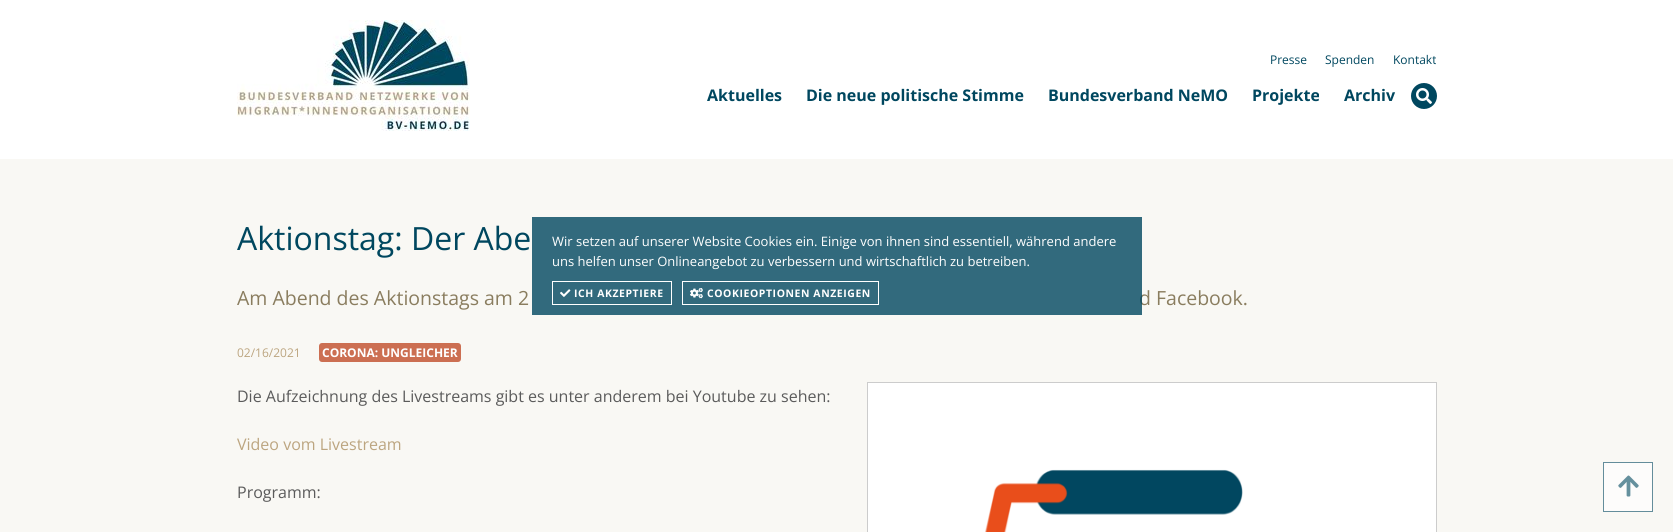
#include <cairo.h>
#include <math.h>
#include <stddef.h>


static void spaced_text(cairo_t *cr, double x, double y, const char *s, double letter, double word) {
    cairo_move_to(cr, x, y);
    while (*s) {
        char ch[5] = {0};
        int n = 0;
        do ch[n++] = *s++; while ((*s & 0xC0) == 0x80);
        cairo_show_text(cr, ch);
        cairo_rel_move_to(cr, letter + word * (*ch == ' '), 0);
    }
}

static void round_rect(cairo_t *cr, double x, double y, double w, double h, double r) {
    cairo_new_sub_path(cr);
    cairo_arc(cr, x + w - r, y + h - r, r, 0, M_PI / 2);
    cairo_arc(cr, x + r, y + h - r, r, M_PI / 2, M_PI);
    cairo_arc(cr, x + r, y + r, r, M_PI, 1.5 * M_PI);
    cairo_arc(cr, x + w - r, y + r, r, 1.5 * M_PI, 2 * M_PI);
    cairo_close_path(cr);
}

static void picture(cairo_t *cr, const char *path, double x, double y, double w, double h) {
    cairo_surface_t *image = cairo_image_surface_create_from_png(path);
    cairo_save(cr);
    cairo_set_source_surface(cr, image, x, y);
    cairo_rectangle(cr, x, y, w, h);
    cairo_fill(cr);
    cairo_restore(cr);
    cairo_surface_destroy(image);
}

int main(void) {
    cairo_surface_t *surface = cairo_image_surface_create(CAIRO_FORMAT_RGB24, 1673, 532);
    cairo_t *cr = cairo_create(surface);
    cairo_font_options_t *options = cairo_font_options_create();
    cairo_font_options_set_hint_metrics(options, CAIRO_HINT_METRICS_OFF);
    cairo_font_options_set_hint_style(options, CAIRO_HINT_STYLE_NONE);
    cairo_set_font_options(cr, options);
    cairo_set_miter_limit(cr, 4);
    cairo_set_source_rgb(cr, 1, 1, 1);
    cairo_paint(cr);
    picture(cr, "img1.png", 237, 20, 233, 111);
    cairo_select_font_face(cr, "Open Sans", CAIRO_FONT_SLANT_NORMAL, CAIRO_FONT_WEIGHT_NORMAL);
    cairo_set_font_size(cr, 12);
    cairo_set_source_rgb(cr, 0, 0.278, 0.373);
    cairo_move_to(cr, 1270, 64);
    cairo_show_text(cr, "Presse");
    cairo_move_to(cr, 1325, 64);
    cairo_show_text(cr, "Spenden");
    cairo_move_to(cr, 1393, 64);
    cairo_show_text(cr, "Kontakt");
    cairo_select_font_face(cr, "Open Sans", CAIRO_FONT_SLANT_NORMAL, CAIRO_FONT_WEIGHT_BOLD);
    cairo_set_font_size(cr, 16);
    cairo_move_to(cr, 707, 101);
    cairo_show_text(cr, "Aktuelles");
    cairo_move_to(cr, 806, 101);
    cairo_show_text(cr, "Die neue politische Stimme");
    cairo_move_to(cr, 1048, 101);
    cairo_show_text(cr, "Bundesverband NeMO");
    cairo_move_to(cr, 1252, 101);
    cairo_show_text(cr, "Projekte");
    cairo_move_to(cr, 1344, 101);
    cairo_show_text(cr, "Archiv");
    cairo_new_path(cr);
    cairo_arc(cr, 1424, 96, 13, 0, 2 * M_PI);
    cairo_fill(cr);
    picture(cr, "img2.png", 1416, 88, 16, 16);
    cairo_set_source_rgb(cr, 0.976, 0.969, 0.957);
    cairo_rectangle(cr, 0, 159, 1673, 373);
    cairo_fill(cr);
    cairo_select_font_face(cr, "Open Sans", CAIRO_FONT_SLANT_NORMAL, CAIRO_FONT_WEIGHT_NORMAL);
    cairo_set_font_size(cr, 32);
    cairo_set_source_rgb(cr, 0, 0.278, 0.373);
    cairo_move_to(cr, 237, 250);
    cairo_show_text(cr, "Aktionstag: Der Abe");
    cairo_set_font_size(cr, 19.5);
    cairo_set_source_rgb(cr, 0.541, 0.49, 0.373);
    cairo_move_to(cr, 237, 305);
    cairo_show_text(cr, "Am Abend des Aktionstags am 2");
    cairo_move_to(cr, 1139, 305);
    cairo_show_text(cr, "d Facebook.");
    cairo_set_font_size(cr, 12);
    cairo_set_source_rgb(cr, 0.737, 0.647, 0.502);
    cairo_move_to(cr, 237, 357);
    cairo_show_text(cr, "02/16/2021");
    cairo_set_source_rgb(cr, 0.8, 0.435, 0.322);
    round_rect(cr, 319, 343, 142, 19, 3);
    cairo_fill(cr);
    cairo_select_font_face(cr, "Open Sans", CAIRO_FONT_SLANT_NORMAL, CAIRO_FONT_WEIGHT_BOLD);
    cairo_set_source_rgb(cr, 1, 1, 1);
    cairo_move_to(cr, 322, 357);
    cairo_show_text(cr, "CORONA: UNGLEICHER");
    cairo_select_font_face(cr, "Open Sans", CAIRO_FONT_SLANT_NORMAL, CAIRO_FONT_WEIGHT_NORMAL);
    cairo_set_font_size(cr, 16);
    cairo_set_source_rgb(cr, 0.357, 0.357, 0.357);
    cairo_move_to(cr, 237, 402);
    cairo_show_text(cr, "Die Aufzeichnung des Livestreams gibt es unter anderem bei Youtube zu sehen:");
    cairo_set_source_rgb(cr, 0.737, 0.647, 0.502);
    cairo_move_to(cr, 237, 450);
    cairo_show_text(cr, "Video vom Livestream");
    cairo_set_source_rgb(cr, 0.357, 0.357, 0.357);
    cairo_move_to(cr, 237, 498);
    cairo_show_text(cr, "Programm:");
    cairo_rectangle(cr, 867.5, 382.5, 569, 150);
    cairo_set_source_rgb(cr, 0.8, 0.8, 0.8);
    cairo_set_line_width(cr, 1);
    cairo_stroke(cr);
    picture(cr, "img3.png", 868, 383, 568, 149);
    cairo_set_source_rgba(cr, 0, 0.278, 0.373, 0.8);
    cairo_rectangle(cr, 532, 217, 610, 98);
    cairo_fill(cr);
    cairo_set_font_size(cr, 13);
    cairo_set_source_rgb(cr, 1, 1, 1);
    cairo_move_to(cr, 552, 246);
    cairo_show_text(cr, "Wir setzen auf unserer Website Cookies ein. Einige von ihnen sind essentiell, während andere");
    cairo_move_to(cr, 552, 266);
    cairo_show_text(cr, "uns helfen unser Onlineangebot zu verbessern und wirtschaftlich zu betreiben.");
    cairo_rectangle(cr, 552.5, 281.5, 119, 23);
    cairo_stroke(cr);
    picture(cr, "img4.png", 560, 289, 11, 8);
    cairo_select_font_face(cr, "Open Sans", CAIRO_FONT_SLANT_NORMAL, CAIRO_FONT_WEIGHT_BOLD);
    cairo_set_font_size(cr, 10.4);
    spaced_text(cr, 574, 297, "ICH AKZEPTIERE", 0.6, 0);
    cairo_rectangle(cr, 682.5, 281.5, 196, 23);
    cairo_stroke(cr);
    picture(cr, "img5.png", 690, 288, 13, 11);
    spaced_text(cr, 707, 297, "COOKIEOPTIONEN ANZEIGEN", 0.6, 0);
    cairo_set_source_rgb(cr, 0.992, 0.988, 0.984);
    cairo_rectangle(cr, 1603.5, 462.5, 49, 49);
    cairo_fill_preserve(cr);
    cairo_set_source_rgb(cr, 0.392, 0.553, 0.608);
    cairo_stroke(cr);
    picture(cr, "img6.png", 1618, 475, 21, 22);
    cairo_surface_write_to_png(surface, "page.png");
    cairo_font_options_destroy(options);
    cairo_destroy(cr);
    cairo_surface_destroy(surface);
    return 0;
}
